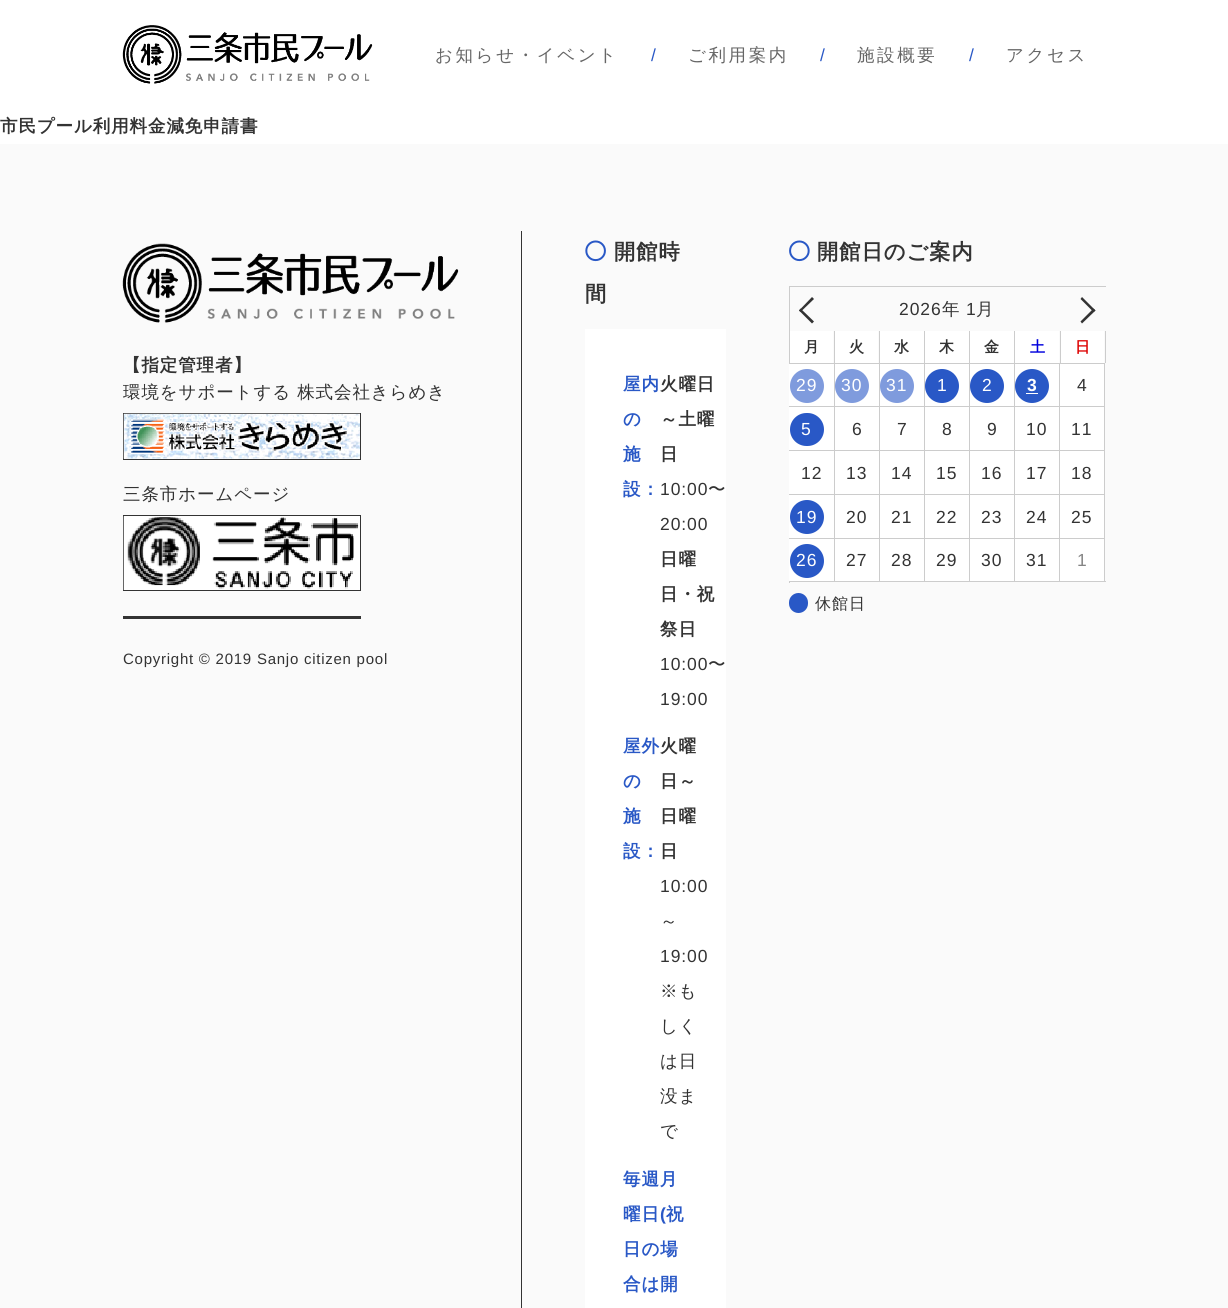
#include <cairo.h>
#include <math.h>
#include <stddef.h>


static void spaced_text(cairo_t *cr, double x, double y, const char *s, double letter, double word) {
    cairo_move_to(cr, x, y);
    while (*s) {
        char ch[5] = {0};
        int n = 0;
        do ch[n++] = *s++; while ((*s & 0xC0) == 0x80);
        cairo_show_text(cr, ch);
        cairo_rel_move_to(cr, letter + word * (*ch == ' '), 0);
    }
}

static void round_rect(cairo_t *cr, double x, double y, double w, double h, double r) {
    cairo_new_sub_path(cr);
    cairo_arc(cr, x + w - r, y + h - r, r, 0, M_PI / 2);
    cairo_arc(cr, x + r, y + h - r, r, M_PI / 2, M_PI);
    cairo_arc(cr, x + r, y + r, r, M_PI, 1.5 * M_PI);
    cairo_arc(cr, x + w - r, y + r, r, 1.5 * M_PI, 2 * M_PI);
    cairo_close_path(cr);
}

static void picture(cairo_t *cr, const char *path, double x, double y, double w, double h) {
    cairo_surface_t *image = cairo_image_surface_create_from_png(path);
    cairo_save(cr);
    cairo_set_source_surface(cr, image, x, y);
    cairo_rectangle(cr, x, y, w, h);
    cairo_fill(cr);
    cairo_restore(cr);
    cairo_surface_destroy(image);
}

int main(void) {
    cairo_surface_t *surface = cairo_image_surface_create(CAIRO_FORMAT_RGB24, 1228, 1308);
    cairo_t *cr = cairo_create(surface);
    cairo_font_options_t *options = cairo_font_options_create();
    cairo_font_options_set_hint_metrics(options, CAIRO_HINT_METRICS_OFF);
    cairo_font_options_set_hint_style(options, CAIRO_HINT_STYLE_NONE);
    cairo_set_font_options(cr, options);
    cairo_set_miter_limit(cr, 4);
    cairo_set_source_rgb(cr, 1, 1, 1);
    cairo_paint(cr);
    picture(cr, "img1.png", 122, 25, 251, 59);
    cairo_select_font_face(cr, "WenQuanYi Zen Hei Medium", CAIRO_FONT_SLANT_NORMAL, CAIRO_FONT_WEIGHT_NORMAL);
    cairo_set_font_size(cr, 17.5);
    cairo_set_source_rgb(cr, 0.4, 0.4, 0.4);
    spaced_text(cr, 435, 61, "お知らせ・イベント", 2.6, 0);
    cairo_select_font_face(cr, "Liberation Sans", CAIRO_FONT_SLANT_NORMAL, CAIRO_FONT_WEIGHT_NORMAL);
    cairo_set_source_rgb(cr, 0.161, 0.345, 0.776);
    spaced_text(cr, 651, 61, "/", 0.9, 0);
    cairo_select_font_face(cr, "WenQuanYi Zen Hei Medium", CAIRO_FONT_SLANT_NORMAL, CAIRO_FONT_WEIGHT_NORMAL);
    cairo_set_source_rgb(cr, 0.4, 0.4, 0.4);
    spaced_text(cr, 688, 61, "ご利用案内", 2.6, 0);
    cairo_select_font_face(cr, "Liberation Sans", CAIRO_FONT_SLANT_NORMAL, CAIRO_FONT_WEIGHT_NORMAL);
    cairo_set_source_rgb(cr, 0.161, 0.345, 0.776);
    spaced_text(cr, 820, 61, "/", 0.9, 0);
    cairo_select_font_face(cr, "WenQuanYi Zen Hei Medium", CAIRO_FONT_SLANT_NORMAL, CAIRO_FONT_WEIGHT_NORMAL);
    cairo_set_source_rgb(cr, 0.4, 0.4, 0.4);
    spaced_text(cr, 857, 61, "施設概要", 2.6, 0);
    cairo_select_font_face(cr, "Liberation Sans", CAIRO_FONT_SLANT_NORMAL, CAIRO_FONT_WEIGHT_NORMAL);
    cairo_set_source_rgb(cr, 0.161, 0.345, 0.776);
    spaced_text(cr, 969, 61, "/", 0.9, 0);
    cairo_select_font_face(cr, "WenQuanYi Zen Hei Medium", CAIRO_FONT_SLANT_NORMAL, CAIRO_FONT_WEIGHT_NORMAL);
    cairo_set_source_rgb(cr, 0.4, 0.4, 0.4);
    spaced_text(cr, 1006, 61, "アクセス", 2.6, 0);
    cairo_select_font_face(cr, "WenQuanYi Zen Hei", CAIRO_FONT_SLANT_NORMAL, CAIRO_FONT_WEIGHT_BOLD);
    cairo_set_source_rgb(cr, 0.2, 0.2, 0.2);
    spaced_text(cr, 0, 132, "市民プール利用料金減免申請書", 0.9, 0);
    cairo_set_source_rgb(cr, 0.98, 0.98, 0.98);
    cairo_rectangle(cr, 0, 144, 1228, 1164);
    cairo_fill(cr);
    cairo_set_source_rgb(cr, 0.2, 0.2, 0.2);
    cairo_rectangle(cr, 521, 231, 1, 1077);
    cairo_fill(cr);
    picture(cr, "img2.png", 122, 243, 337, 80);
    spaced_text(cr, 123, 371, "【指定管理者】", 0.9, 0);
    cairo_select_font_face(cr, "WenQuanYi Zen Hei Medium", CAIRO_FONT_SLANT_NORMAL, CAIRO_FONT_WEIGHT_NORMAL);
    spaced_text(cr, 123, 398, "環境をサポートする 株式会社きらめき", 0.9, 0);
    cairo_rectangle(cr, 123.5, 413.5, 237, 46);
    cairo_set_line_width(cr, 1);
    cairo_stroke(cr);
    picture(cr, "img3.png", 123, 413, 237, 46);
    spaced_text(cr, 123, 500, "三条市ホームページ", 0.9, 0);
    cairo_rectangle(cr, 123.5, 515.5, 237, 75);
    cairo_stroke(cr);
    picture(cr, "img4.png", 123, 516, 237, 74);
    cairo_rectangle(cr, 123, 616, 238, 3);
    cairo_fill(cr);
    cairo_select_font_face(cr, "Liberation Sans", CAIRO_FONT_SLANT_NORMAL, CAIRO_FONT_WEIGHT_NORMAL);
    cairo_set_font_size(cr, 15);
    spaced_text(cr, 123, 664, "Copyright © 2019 Sanjo citizen pool", 0.75, 0);
    picture(cr, "img5.png", 585, 240, 21, 22);
    cairo_select_font_face(cr, "WenQuanYi Zen Hei", CAIRO_FONT_SLANT_NORMAL, CAIRO_FONT_WEIGHT_BOLD);
    cairo_set_font_size(cr, 21.25);
    spaced_text(cr, 614, 259, "開館時", 1, 0);
    spaced_text(cr, 585, 301, "間", 1, 0);
    cairo_set_source_rgb(cr, 1, 1, 1);
    cairo_rectangle(cr, 585, 329, 141, 979);
    cairo_fill(cr);
    cairo_set_font_size(cr, 17.5);
    cairo_set_source_rgb(cr, 0.161, 0.345, 0.776);
    spaced_text(cr, 623, 390, "屋内", 0.9, 0);
    spaced_text(cr, 623, 425, "の", 0.9, 0);
    spaced_text(cr, 623, 460, "施", 0.9, 0);
    spaced_text(cr, 623, 495, "設：", 0.9, 0);
    cairo_set_source_rgb(cr, 0.2, 0.2, 0.2);
    spaced_text(cr, 660, 390, "火曜日", 0.9, 0);
    spaced_text(cr, 660, 425, "～土曜", 0.9, 0);
    spaced_text(cr, 660, 460, "日", 0.9, 0);
    cairo_select_font_face(cr, "Liberation Sans", CAIRO_FONT_SLANT_NORMAL, CAIRO_FONT_WEIGHT_NORMAL);
    spaced_text(cr, 660, 495, "10:00", 0.9, 0);
    cairo_select_font_face(cr, "WenQuanYi Zen Hei Medium", CAIRO_FONT_SLANT_NORMAL, CAIRO_FONT_WEIGHT_NORMAL);
    spaced_text(cr, 708, 495, "〜", 0.9, 0);
    cairo_select_font_face(cr, "Liberation Sans", CAIRO_FONT_SLANT_NORMAL, CAIRO_FONT_WEIGHT_NORMAL);
    spaced_text(cr, 660, 530, "20:00", 0.9, 0);
    cairo_select_font_face(cr, "WenQuanYi Zen Hei", CAIRO_FONT_SLANT_NORMAL, CAIRO_FONT_WEIGHT_BOLD);
    spaced_text(cr, 660, 565, "日曜", 0.9, 0);
    spaced_text(cr, 660, 600, "日・祝", 0.9, 0);
    spaced_text(cr, 660, 635, "祭日", 0.9, 0);
    cairo_select_font_face(cr, "Liberation Sans", CAIRO_FONT_SLANT_NORMAL, CAIRO_FONT_WEIGHT_NORMAL);
    spaced_text(cr, 660, 670, "10:00", 0.9, 0);
    cairo_select_font_face(cr, "WenQuanYi Zen Hei Medium", CAIRO_FONT_SLANT_NORMAL, CAIRO_FONT_WEIGHT_NORMAL);
    spaced_text(cr, 708, 670, "〜", 0.9, 0);
    cairo_select_font_face(cr, "Liberation Sans", CAIRO_FONT_SLANT_NORMAL, CAIRO_FONT_WEIGHT_NORMAL);
    spaced_text(cr, 660, 705, "19:00", 0.9, 0);
    cairo_select_font_face(cr, "WenQuanYi Zen Hei", CAIRO_FONT_SLANT_NORMAL, CAIRO_FONT_WEIGHT_BOLD);
    cairo_set_source_rgb(cr, 0.161, 0.345, 0.776);
    spaced_text(cr, 623, 752, "屋外", 0.9, 0);
    spaced_text(cr, 623, 787, "の", 0.9, 0);
    spaced_text(cr, 623, 822, "施", 0.9, 0);
    spaced_text(cr, 623, 857, "設：", 0.9, 0);
    cairo_set_source_rgb(cr, 0.2, 0.2, 0.2);
    spaced_text(cr, 660, 752, "火曜", 0.9, 0);
    spaced_text(cr, 660, 787, "日～", 0.9, 0);
    spaced_text(cr, 660, 822, "日曜", 0.9, 0);
    spaced_text(cr, 660, 857, "日", 0.9, 0);
    cairo_select_font_face(cr, "Liberation Sans", CAIRO_FONT_SLANT_NORMAL, CAIRO_FONT_WEIGHT_NORMAL);
    spaced_text(cr, 660, 892, "10:00", 0.9, 0);
    cairo_select_font_face(cr, "WenQuanYi Zen Hei Medium", CAIRO_FONT_SLANT_NORMAL, CAIRO_FONT_WEIGHT_NORMAL);
    spaced_text(cr, 660, 927, "～", 0.9, 0);
    cairo_select_font_face(cr, "Liberation Sans", CAIRO_FONT_SLANT_NORMAL, CAIRO_FONT_WEIGHT_NORMAL);
    spaced_text(cr, 660, 962, "19:00", 0.9, 0);
    cairo_select_font_face(cr, "WenQuanYi Zen Hei Medium", CAIRO_FONT_SLANT_NORMAL, CAIRO_FONT_WEIGHT_NORMAL);
    spaced_text(cr, 660, 997, "※も", 0.9, 0);
    spaced_text(cr, 660, 1032, "しく", 0.9, 0);
    spaced_text(cr, 660, 1067, "は日", 0.9, 0);
    spaced_text(cr, 660, 1102, "没ま", 0.9, 0);
    spaced_text(cr, 660, 1137, "で", 0.9, 0);
    cairo_select_font_face(cr, "WenQuanYi Zen Hei", CAIRO_FONT_SLANT_NORMAL, CAIRO_FONT_WEIGHT_BOLD);
    cairo_set_source_rgb(cr, 0.161, 0.345, 0.776);
    spaced_text(cr, 623, 1185, "毎週月", 0.9, 0);
    spaced_text(cr, 623, 1220, "曜日", 0.9, 0);
    cairo_select_font_face(cr, "Liberation Sans", CAIRO_FONT_SLANT_NORMAL, CAIRO_FONT_WEIGHT_BOLD);
    spaced_text(cr, 660, 1220, "(", 0.9, 0);
    cairo_select_font_face(cr, "WenQuanYi Zen Hei", CAIRO_FONT_SLANT_NORMAL, CAIRO_FONT_WEIGHT_BOLD);
    spaced_text(cr, 666, 1220, "祝", 0.9, 0);
    spaced_text(cr, 623, 1255, "日の場", 0.9, 0);
    spaced_text(cr, 623, 1290, "合は開", 0.9, 0);
    picture(cr, "img6.png", 789, 240, 21, 22);
    cairo_set_font_size(cr, 21.25);
    cairo_set_source_rgb(cr, 0.2, 0.2, 0.2);
    spaced_text(cr, 817, 259, "開館日のご案内", 1, 0);
    cairo_set_source_rgb(cr, 0.8, 0.8, 0.8);
    cairo_rectangle(cr, 789, 286, 317, 1);
    cairo_fill(cr);
    cairo_rectangle(cr, 789, 581, 317, 1);
    cairo_fill(cr);
    cairo_rectangle(cr, 789, 286, 1, 297);
    cairo_fill(cr);
    cairo_set_source_rgb(cr, 0.2, 0.2, 0.2);
    cairo_new_path(cr);
    cairo_move_to(cr, 800.5, 308.5);
    cairo_line_to(cr, 814, 321.5);
    cairo_line_to(cr, 812, 323.5);
    cairo_line_to(cr, 799, 310.5);
    cairo_close_path(cr);
    cairo_fill(cr);
    cairo_new_path(cr);
    cairo_move_to(cr, 812, 297);
    cairo_line_to(cr, 814, 299);
    cairo_line_to(cr, 800.5, 312);
    cairo_line_to(cr, 799, 310.5);
    cairo_close_path(cr);
    cairo_fill(cr);
    cairo_select_font_face(cr, "Liberation Sans", CAIRO_FONT_SLANT_NORMAL, CAIRO_FONT_WEIGHT_NORMAL);
    cairo_set_font_size(cr, 17.5);
    spaced_text(cr, 899, 315, "2026", 0.9, 0);
    cairo_select_font_face(cr, "WenQuanYi Zen Hei Medium", CAIRO_FONT_SLANT_NORMAL, CAIRO_FONT_WEIGHT_NORMAL);
    spaced_text(cr, 942, 315, "年", 0.9, 0);
    cairo_select_font_face(cr, "Liberation Sans", CAIRO_FONT_SLANT_NORMAL, CAIRO_FONT_WEIGHT_NORMAL);
    spaced_text(cr, 966, 315, "1", 0.9, 0);
    cairo_select_font_face(cr, "WenQuanYi Zen Hei Medium", CAIRO_FONT_SLANT_NORMAL, CAIRO_FONT_WEIGHT_NORMAL);
    spaced_text(cr, 976, 315, "月", 0.9, 0);
    cairo_new_path(cr);
    cairo_move_to(cr, 1082, 297);
    cairo_line_to(cr, 1095.5, 310.5);
    cairo_line_to(cr, 1093.5, 312);
    cairo_line_to(cr, 1080.5, 299);
    cairo_close_path(cr);
    cairo_fill(cr);
    cairo_new_path(cr);
    cairo_move_to(cr, 1093.5, 308.5);
    cairo_line_to(cr, 1095.5, 310.5);
    cairo_line_to(cr, 1082, 323.5);
    cairo_line_to(cr, 1080.5, 321.5);
    cairo_close_path(cr);
    cairo_fill(cr);
    cairo_set_source_rgb(cr, 1, 1, 1);
    cairo_rectangle(cr, 790, 331, 43, 32);
    cairo_fill(cr);
    cairo_set_source_rgb(cr, 0.8, 0.8, 0.8);
    cairo_rectangle(cr, 834, 331, 1, 32);
    cairo_fill(cr);
    cairo_select_font_face(cr, "WenQuanYi Zen Hei", CAIRO_FONT_SLANT_NORMAL, CAIRO_FONT_WEIGHT_BOLD);
    cairo_set_font_size(cr, 15);
    cairo_set_source_rgb(cr, 0.2, 0.2, 0.2);
    spaced_text(cr, 804, 352, "月", 0.75, 0);
    cairo_set_source_rgb(cr, 1, 1, 1);
    cairo_rectangle(cr, 835, 331, 43, 32);
    cairo_fill(cr);
    cairo_set_source_rgb(cr, 0.8, 0.8, 0.8);
    cairo_rectangle(cr, 879, 331, 1, 32);
    cairo_fill(cr);
    cairo_set_source_rgb(cr, 0.2, 0.2, 0.2);
    spaced_text(cr, 849, 352, "火", 0.75, 0);
    cairo_set_source_rgb(cr, 1, 1, 1);
    cairo_rectangle(cr, 880, 331, 44, 32);
    cairo_fill(cr);
    cairo_set_source_rgb(cr, 0.8, 0.8, 0.8);
    cairo_rectangle(cr, 924, 331, 1, 32);
    cairo_fill(cr);
    cairo_set_source_rgb(cr, 0.2, 0.2, 0.2);
    spaced_text(cr, 894, 352, "水", 0.75, 0);
    cairo_set_source_rgb(cr, 1, 1, 1);
    cairo_rectangle(cr, 925, 331, 44, 32);
    cairo_fill(cr);
    cairo_set_source_rgb(cr, 0.8, 0.8, 0.8);
    cairo_rectangle(cr, 969, 331, 1, 32);
    cairo_fill(cr);
    cairo_set_source_rgb(cr, 0.2, 0.2, 0.2);
    spaced_text(cr, 939, 352, "木", 0.75, 0);
    cairo_set_source_rgb(cr, 1, 1, 1);
    cairo_rectangle(cr, 970, 331, 44, 32);
    cairo_fill(cr);
    cairo_set_source_rgb(cr, 0.8, 0.8, 0.8);
    cairo_rectangle(cr, 1014, 331, 1, 32);
    cairo_fill(cr);
    cairo_set_source_rgb(cr, 0.2, 0.2, 0.2);
    spaced_text(cr, 984, 352, "金", 0.75, 0);
    cairo_set_source_rgb(cr, 1, 1, 1);
    cairo_rectangle(cr, 1015, 331, 44, 32);
    cairo_fill(cr);
    cairo_set_source_rgb(cr, 0.8, 0.8, 0.8);
    cairo_rectangle(cr, 1060, 331, 1, 32);
    cairo_fill(cr);
    cairo_set_source_rgb(cr, 0, 0, 0.867);
    spaced_text(cr, 1030, 352, "土", 0.75, 0);
    cairo_set_source_rgb(cr, 1, 1, 1);
    cairo_rectangle(cr, 1061, 331, 43, 32);
    cairo_fill(cr);
    cairo_set_source_rgb(cr, 0.8, 0.8, 0.8);
    cairo_rectangle(cr, 1105, 331, 1, 32);
    cairo_fill(cr);
    cairo_set_source_rgb(cr, 0.867, 0, 0);
    spaced_text(cr, 1075, 352, "日", 0.75, 0);
    cairo_set_source_rgb(cr, 1, 1, 1);
    cairo_rectangle(cr, 789, 364, 315, 42);
    cairo_fill(cr);
    cairo_set_source_rgb(cr, 0.8, 0.8, 0.8);
    cairo_rectangle(cr, 789, 363, 316, 1);
    cairo_fill(cr);
    cairo_rectangle(cr, 834, 363, 1, 43);
    cairo_fill(cr);
    cairo_set_source_rgb(cr, 0.498, 0.608, 0.867);
    cairo_arc(cr, 807, 386, 17, 0, 2 * M_PI);
    cairo_fill(cr);
    cairo_select_font_face(cr, "Liberation Sans", CAIRO_FONT_SLANT_NORMAL, CAIRO_FONT_WEIGHT_NORMAL);
    cairo_set_font_size(cr, 17.5);
    cairo_set_source_rgb(cr, 1, 1, 1);
    spaced_text(cr, 796, 391, "29", 0.9, 0);
    cairo_set_source_rgb(cr, 0.8, 0.8, 0.8);
    cairo_rectangle(cr, 879, 363, 1, 43);
    cairo_fill(cr);
    cairo_set_source_rgb(cr, 0.498, 0.608, 0.867);
    cairo_arc(cr, 852, 386, 17, 0, 2 * M_PI);
    cairo_fill(cr);
    cairo_set_source_rgb(cr, 1, 1, 1);
    spaced_text(cr, 841, 391, "30", 0.9, 0);
    cairo_set_source_rgb(cr, 0.8, 0.8, 0.8);
    cairo_rectangle(cr, 924, 363, 1, 43);
    cairo_fill(cr);
    cairo_set_source_rgb(cr, 0.498, 0.608, 0.867);
    cairo_arc(cr, 897, 386, 17, 0, 2 * M_PI);
    cairo_fill(cr);
    cairo_set_source_rgb(cr, 1, 1, 1);
    spaced_text(cr, 886, 391, "31", 0.9, 0);
    cairo_set_source_rgb(cr, 0.8, 0.8, 0.8);
    cairo_rectangle(cr, 969, 363, 1, 43);
    cairo_fill(cr);
    cairo_set_source_rgb(cr, 0.161, 0.345, 0.776);
    cairo_arc(cr, 942, 386, 17, 0, 2 * M_PI);
    cairo_fill(cr);
    cairo_set_source_rgb(cr, 1, 1, 1);
    spaced_text(cr, 937, 391, "1", 0.9, 0);
    cairo_set_source_rgb(cr, 0.8, 0.8, 0.8);
    cairo_rectangle(cr, 1014, 363, 1, 43);
    cairo_fill(cr);
    cairo_set_source_rgb(cr, 0.161, 0.345, 0.776);
    cairo_arc(cr, 987, 386, 17, 0, 2 * M_PI);
    cairo_fill(cr);
    cairo_set_source_rgb(cr, 1, 1, 1);
    spaced_text(cr, 982, 391, "2", 0.9, 0);
    cairo_set_source_rgb(cr, 0.8, 0.8, 0.8);
    cairo_rectangle(cr, 1059, 363, 1, 43);
    cairo_fill(cr);
    cairo_set_source_rgb(cr, 0.161, 0.345, 0.776);
    cairo_arc(cr, 1032, 386, 17, 0, 2 * M_PI);
    cairo_fill(cr);
    cairo_select_font_face(cr, "Liberation Sans", CAIRO_FONT_SLANT_NORMAL, CAIRO_FONT_WEIGHT_BOLD);
    cairo_set_source_rgb(cr, 1, 1, 1);
    spaced_text(cr, 1027, 391, "3", 0.9, 0);
    cairo_rectangle(cr, 1026, 393, 12, 1);
    cairo_fill(cr);
    cairo_set_source_rgb(cr, 0.8, 0.8, 0.8);
    cairo_rectangle(cr, 1104, 363, 1, 43);
    cairo_fill(cr);
    cairo_select_font_face(cr, "Liberation Sans", CAIRO_FONT_SLANT_NORMAL, CAIRO_FONT_WEIGHT_NORMAL);
    cairo_set_source_rgb(cr, 0.2, 0.2, 0.2);
    spaced_text(cr, 1077, 391, "4", 0.9, 0);
    cairo_set_source_rgb(cr, 1, 1, 1);
    cairo_rectangle(cr, 789, 407, 315, 43);
    cairo_fill(cr);
    cairo_set_source_rgb(cr, 0.8, 0.8, 0.8);
    cairo_rectangle(cr, 789, 406, 316, 1);
    cairo_fill(cr);
    cairo_rectangle(cr, 834, 406, 1, 44);
    cairo_fill(cr);
    cairo_set_source_rgb(cr, 0.161, 0.345, 0.776);
    round_rect(cr, 790, 413, 34, 33, 16.5);
    cairo_fill(cr);
    cairo_set_source_rgb(cr, 1, 1, 1);
    spaced_text(cr, 801, 435, "5", 0.9, 0);
    cairo_set_source_rgb(cr, 0.8, 0.8, 0.8);
    cairo_rectangle(cr, 879, 406, 1, 44);
    cairo_fill(cr);
    cairo_set_source_rgb(cr, 0.2, 0.2, 0.2);
    spaced_text(cr, 852, 435, "6", 0.9, 0);
    cairo_set_source_rgb(cr, 0.8, 0.8, 0.8);
    cairo_rectangle(cr, 924, 406, 1, 44);
    cairo_fill(cr);
    cairo_set_source_rgb(cr, 0.2, 0.2, 0.2);
    spaced_text(cr, 897, 435, "7", 0.9, 0);
    cairo_set_source_rgb(cr, 0.8, 0.8, 0.8);
    cairo_rectangle(cr, 969, 406, 1, 44);
    cairo_fill(cr);
    cairo_set_source_rgb(cr, 0.2, 0.2, 0.2);
    spaced_text(cr, 942, 435, "8", 0.9, 0);
    cairo_set_source_rgb(cr, 0.8, 0.8, 0.8);
    cairo_rectangle(cr, 1014, 406, 1, 44);
    cairo_fill(cr);
    cairo_set_source_rgb(cr, 0.2, 0.2, 0.2);
    spaced_text(cr, 987, 435, "9", 0.9, 0);
    cairo_set_source_rgb(cr, 0.8, 0.8, 0.8);
    cairo_rectangle(cr, 1059, 406, 1, 44);
    cairo_fill(cr);
    cairo_set_source_rgb(cr, 0.2, 0.2, 0.2);
    spaced_text(cr, 1026, 435, "10", 0.9, 0);
    cairo_set_source_rgb(cr, 0.8, 0.8, 0.8);
    cairo_rectangle(cr, 1104, 406, 1, 44);
    cairo_fill(cr);
    cairo_set_source_rgb(cr, 0.2, 0.2, 0.2);
    spaced_text(cr, 1071, 435, "11", 0.9, 0);
    cairo_set_source_rgb(cr, 1, 1, 1);
    cairo_rectangle(cr, 789, 451, 315, 43);
    cairo_fill(cr);
    cairo_set_source_rgb(cr, 0.8, 0.8, 0.8);
    cairo_rectangle(cr, 789, 450, 316, 1);
    cairo_fill(cr);
    cairo_rectangle(cr, 834, 450, 1, 44);
    cairo_fill(cr);
    cairo_set_source_rgb(cr, 0.2, 0.2, 0.2);
    spaced_text(cr, 801, 479, "12", 0.9, 0);
    cairo_set_source_rgb(cr, 0.8, 0.8, 0.8);
    cairo_rectangle(cr, 879, 450, 1, 44);
    cairo_fill(cr);
    cairo_set_source_rgb(cr, 0.2, 0.2, 0.2);
    spaced_text(cr, 846, 479, "13", 0.9, 0);
    cairo_set_source_rgb(cr, 0.8, 0.8, 0.8);
    cairo_rectangle(cr, 924, 450, 1, 44);
    cairo_fill(cr);
    cairo_set_source_rgb(cr, 0.2, 0.2, 0.2);
    spaced_text(cr, 891, 479, "14", 0.9, 0);
    cairo_set_source_rgb(cr, 0.8, 0.8, 0.8);
    cairo_rectangle(cr, 969, 450, 1, 44);
    cairo_fill(cr);
    cairo_set_source_rgb(cr, 0.2, 0.2, 0.2);
    spaced_text(cr, 936, 479, "15", 0.9, 0);
    cairo_set_source_rgb(cr, 0.8, 0.8, 0.8);
    cairo_rectangle(cr, 1014, 450, 1, 44);
    cairo_fill(cr);
    cairo_set_source_rgb(cr, 0.2, 0.2, 0.2);
    spaced_text(cr, 981, 479, "16", 0.9, 0);
    cairo_set_source_rgb(cr, 0.8, 0.8, 0.8);
    cairo_rectangle(cr, 1059, 450, 1, 44);
    cairo_fill(cr);
    cairo_set_source_rgb(cr, 0.2, 0.2, 0.2);
    spaced_text(cr, 1026, 479, "17", 0.9, 0);
    cairo_set_source_rgb(cr, 0.8, 0.8, 0.8);
    cairo_rectangle(cr, 1104, 450, 1, 44);
    cairo_fill(cr);
    cairo_set_source_rgb(cr, 0.2, 0.2, 0.2);
    spaced_text(cr, 1071, 479, "18", 0.9, 0);
    cairo_set_source_rgb(cr, 1, 1, 1);
    cairo_rectangle(cr, 789, 495, 315, 43);
    cairo_fill(cr);
    cairo_set_source_rgb(cr, 0.8, 0.8, 0.8);
    cairo_rectangle(cr, 789, 494, 316, 1);
    cairo_fill(cr);
    cairo_rectangle(cr, 834, 494, 1, 44);
    cairo_fill(cr);
    cairo_set_source_rgb(cr, 0.161, 0.345, 0.776);
    cairo_arc(cr, 807, 517, 17, 0, 2 * M_PI);
    cairo_fill(cr);
    cairo_set_source_rgb(cr, 1, 1, 1);
    spaced_text(cr, 796, 523, "19", 0.9, 0);
    cairo_set_source_rgb(cr, 0.8, 0.8, 0.8);
    cairo_rectangle(cr, 879, 494, 1, 44);
    cairo_fill(cr);
    cairo_set_source_rgb(cr, 0.2, 0.2, 0.2);
    spaced_text(cr, 846, 523, "20", 0.9, 0);
    cairo_set_source_rgb(cr, 0.8, 0.8, 0.8);
    cairo_rectangle(cr, 924, 494, 1, 44);
    cairo_fill(cr);
    cairo_set_source_rgb(cr, 0.2, 0.2, 0.2);
    spaced_text(cr, 891, 523, "21", 0.9, 0);
    cairo_set_source_rgb(cr, 0.8, 0.8, 0.8);
    cairo_rectangle(cr, 969, 494, 1, 44);
    cairo_fill(cr);
    cairo_set_source_rgb(cr, 0.2, 0.2, 0.2);
    spaced_text(cr, 936, 523, "22", 0.9, 0);
    cairo_set_source_rgb(cr, 0.8, 0.8, 0.8);
    cairo_rectangle(cr, 1014, 494, 1, 44);
    cairo_fill(cr);
    cairo_set_source_rgb(cr, 0.2, 0.2, 0.2);
    spaced_text(cr, 981, 523, "23", 0.9, 0);
    cairo_set_source_rgb(cr, 0.8, 0.8, 0.8);
    cairo_rectangle(cr, 1059, 494, 1, 44);
    cairo_fill(cr);
    cairo_set_source_rgb(cr, 0.2, 0.2, 0.2);
    spaced_text(cr, 1026, 523, "24", 0.9, 0);
    cairo_set_source_rgb(cr, 0.8, 0.8, 0.8);
    cairo_rectangle(cr, 1104, 494, 1, 44);
    cairo_fill(cr);
    cairo_set_source_rgb(cr, 0.2, 0.2, 0.2);
    spaced_text(cr, 1071, 523, "25", 0.9, 0);
    cairo_set_source_rgb(cr, 1, 1, 1);
    cairo_rectangle(cr, 789, 539, 315, 42);
    cairo_fill(cr);
    cairo_set_source_rgb(cr, 0.8, 0.8, 0.8);
    cairo_rectangle(cr, 789, 538, 316, 1);
    cairo_fill(cr);
    cairo_rectangle(cr, 834, 538, 1, 43);
    cairo_fill(cr);
    cairo_set_source_rgb(cr, 0.161, 0.345, 0.776);
    cairo_arc(cr, 807, 561, 17, 0, 2 * M_PI);
    cairo_fill(cr);
    cairo_set_source_rgb(cr, 1, 1, 1);
    spaced_text(cr, 796, 566, "26", 0.9, 0);
    cairo_set_source_rgb(cr, 0.8, 0.8, 0.8);
    cairo_rectangle(cr, 879, 538, 1, 43);
    cairo_fill(cr);
    cairo_set_source_rgb(cr, 0.2, 0.2, 0.2);
    spaced_text(cr, 846, 566, "27", 0.9, 0);
    cairo_set_source_rgb(cr, 0.8, 0.8, 0.8);
    cairo_rectangle(cr, 924, 538, 1, 43);
    cairo_fill(cr);
    cairo_set_source_rgb(cr, 0.2, 0.2, 0.2);
    spaced_text(cr, 891, 566, "28", 0.9, 0);
    cairo_set_source_rgb(cr, 0.8, 0.8, 0.8);
    cairo_rectangle(cr, 969, 538, 1, 43);
    cairo_fill(cr);
    cairo_set_source_rgb(cr, 0.2, 0.2, 0.2);
    spaced_text(cr, 936, 566, "29", 0.9, 0);
    cairo_set_source_rgb(cr, 0.8, 0.8, 0.8);
    cairo_rectangle(cr, 1014, 538, 1, 43);
    cairo_fill(cr);
    cairo_set_source_rgb(cr, 0.2, 0.2, 0.2);
    spaced_text(cr, 981, 566, "30", 0.9, 0);
    cairo_set_source_rgb(cr, 0.8, 0.8, 0.8);
    cairo_rectangle(cr, 1059, 538, 1, 43);
    cairo_fill(cr);
    cairo_set_source_rgb(cr, 0.2, 0.2, 0.2);
    spaced_text(cr, 1026, 566, "31", 0.9, 0);
    cairo_set_source_rgb(cr, 0.8, 0.8, 0.8);
    cairo_rectangle(cr, 1104, 538, 1, 43);
    cairo_fill(cr);
    cairo_set_source_rgb(cr, 0.522, 0.522, 0.522);
    spaced_text(cr, 1077, 566, "1", 0.9, 0);
    cairo_set_source_rgb(cr, 0.161, 0.345, 0.776);
    round_rect(cr, 789, 593, 19, 20, 9.5);
    cairo_fill(cr);
    cairo_select_font_face(cr, "WenQuanYi Zen Hei Medium", CAIRO_FONT_SLANT_NORMAL, CAIRO_FONT_WEIGHT_NORMAL);
    cairo_set_font_size(cr, 16);
    cairo_set_source_rgb(cr, 0.2, 0.2, 0.2);
    spaced_text(cr, 815, 609, "休館日", 1, 0);
    cairo_surface_write_to_png(surface, "page.png");
    cairo_font_options_destroy(options);
    cairo_destroy(cr);
    cairo_surface_destroy(surface);
    return 0;
}
